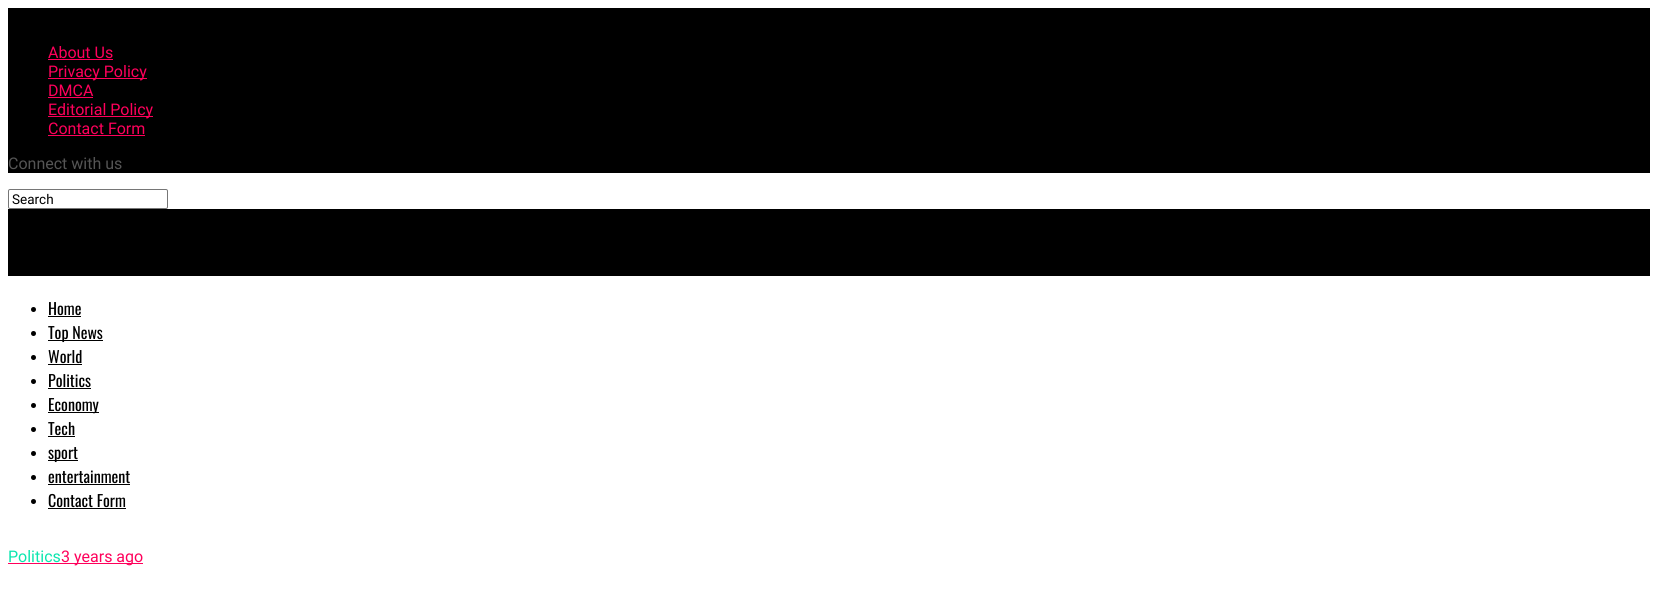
#include <cairo.h>
#include <math.h>
#include <stddef.h>


static void round_rect(cairo_t *cr, double x, double y, double w, double h, double r) {
    cairo_new_sub_path(cr);
    cairo_arc(cr, x + w - r, y + h - r, r, 0, M_PI / 2);
    cairo_arc(cr, x + r, y + h - r, r, M_PI / 2, M_PI);
    cairo_arc(cr, x + r, y + r, r, M_PI, 1.5 * M_PI);
    cairo_arc(cr, x + w - r, y + r, r, 1.5 * M_PI, 2 * M_PI);
    cairo_close_path(cr);
}

int main(void) {
    cairo_surface_t *surface = cairo_image_surface_create(CAIRO_FORMAT_RGB24, 1658, 603);
    cairo_t *cr = cairo_create(surface);
    cairo_font_options_t *options = cairo_font_options_create();
    cairo_font_options_set_hint_metrics(options, CAIRO_HINT_METRICS_OFF);
    cairo_font_options_set_hint_style(options, CAIRO_HINT_STYLE_NONE);
    cairo_set_font_options(cr, options);
    cairo_set_miter_limit(cr, 4);
    cairo_set_source_rgb(cr, 1, 1, 1);
    cairo_paint(cr);
    cairo_set_source_rgb(cr, 0, 0, 0);
    cairo_rectangle(cr, 8, 8, 1642, 165);
    cairo_fill(cr);
    cairo_select_font_face(cr, "Roboto", CAIRO_FONT_SLANT_NORMAL, CAIRO_FONT_WEIGHT_NORMAL);
    cairo_set_font_size(cr, 16);
    cairo_set_source_rgb(cr, 1, 0, 0.357);
    cairo_move_to(cr, 48, 58);
    cairo_show_text(cr, "About Us");
    cairo_rectangle(cr, 48, 59, 65, 1);
    cairo_fill(cr);
    cairo_rectangle(cr, 48, 78, 99, 1);
    cairo_fill(cr);
    cairo_move_to(cr, 48, 77);
    cairo_show_text(cr, "Privacy Policy");
    cairo_move_to(cr, 48, 96);
    cairo_show_text(cr, "DMCA");
    cairo_rectangle(cr, 48, 97, 45, 1);
    cairo_fill(cr);
    cairo_rectangle(cr, 48, 116, 105, 1);
    cairo_fill(cr);
    cairo_move_to(cr, 48, 115);
    cairo_show_text(cr, "Editorial Policy");
    cairo_move_to(cr, 48, 134);
    cairo_show_text(cr, "Contact Form");
    cairo_rectangle(cr, 48, 135, 97, 1);
    cairo_fill(cr);
    cairo_set_source_rgb(cr, 0.333, 0.333, 0.333);
    cairo_move_to(cr, 8, 169);
    cairo_show_text(cr, "Connect with us");
    round_rect(cr, 8.5, 189.5, 159, 19, 1.5);
    cairo_set_source_rgb(cr, 0.463, 0.463, 0.463);
    cairo_set_line_width(cr, 1);
    cairo_stroke(cr);
    cairo_set_font_size(cr, 13.5);
    cairo_set_source_rgb(cr, 0, 0, 0);
    cairo_move_to(cr, 12, 204);
    cairo_show_text(cr, "Search");
    cairo_rectangle(cr, 8, 209, 1642, 67);
    cairo_fill(cr);
    cairo_arc(cr, 33.5, 309.5, 2.5, 0, 2 * M_PI);
    cairo_fill(cr);
    cairo_select_font_face(cr, "Oswald", CAIRO_FONT_SLANT_NORMAL, CAIRO_FONT_WEIGHT_NORMAL);
    cairo_set_font_size(cr, 16);
    cairo_move_to(cr, 48, 315);
    cairo_show_text(cr, "Home");
    cairo_rectangle(cr, 48, 316, 33, 1);
    cairo_fill(cr);
    cairo_arc(cr, 33.5, 333.5, 2.5, 0, 2 * M_PI);
    cairo_fill(cr);
    cairo_rectangle(cr, 48, 340, 55, 1);
    cairo_fill(cr);
    cairo_move_to(cr, 48, 339);
    cairo_show_text(cr, "Top News");
    cairo_new_path(cr);
    cairo_arc(cr, 33.5, 357.5, 2.5, 0, 2 * M_PI);
    cairo_fill(cr);
    cairo_move_to(cr, 48, 363);
    cairo_show_text(cr, "World");
    cairo_rectangle(cr, 48, 364, 34, 1);
    cairo_fill(cr);
    cairo_arc(cr, 33.5, 381.5, 2.5, 0, 2 * M_PI);
    cairo_fill(cr);
    cairo_move_to(cr, 48, 387);
    cairo_show_text(cr, "Politics");
    cairo_rectangle(cr, 48, 388, 43, 1);
    cairo_fill(cr);
    cairo_arc(cr, 33.5, 405.5, 2.5, 0, 2 * M_PI);
    cairo_fill(cr);
    cairo_rectangle(cr, 48, 412, 51, 1);
    cairo_fill(cr);
    cairo_move_to(cr, 48, 411);
    cairo_show_text(cr, "Economy");
    cairo_new_path(cr);
    cairo_arc(cr, 33.5, 429.5, 2.5, 0, 2 * M_PI);
    cairo_fill(cr);
    cairo_move_to(cr, 48, 435);
    cairo_show_text(cr, "Tech");
    cairo_rectangle(cr, 48, 436, 27, 1);
    cairo_fill(cr);
    cairo_arc(cr, 33.5, 453.5, 2.5, 0, 2 * M_PI);
    cairo_fill(cr);
    cairo_rectangle(cr, 48, 460, 30, 1);
    cairo_fill(cr);
    cairo_move_to(cr, 48, 459);
    cairo_show_text(cr, "sport");
    cairo_new_path(cr);
    cairo_arc(cr, 33.5, 477.5, 2.5, 0, 2 * M_PI);
    cairo_fill(cr);
    cairo_move_to(cr, 48, 483);
    cairo_show_text(cr, "entertainment");
    cairo_rectangle(cr, 48, 484, 82, 1);
    cairo_fill(cr);
    cairo_arc(cr, 33.5, 501.5, 2.5, 0, 2 * M_PI);
    cairo_fill(cr);
    cairo_move_to(cr, 48, 507);
    cairo_show_text(cr, "Contact Form");
    cairo_rectangle(cr, 48, 508, 78, 1);
    cairo_fill(cr);
    cairo_select_font_face(cr, "Roboto", CAIRO_FONT_SLANT_NORMAL, CAIRO_FONT_WEIGHT_NORMAL);
    cairo_set_source_rgb(cr, 0.043, 0.902, 0.686);
    cairo_move_to(cr, 8, 562);
    cairo_show_text(cr, "Politics");
    cairo_set_source_rgb(cr, 1, 0, 0.357);
    cairo_rectangle(cr, 8, 563, 135, 1);
    cairo_fill(cr);
    cairo_move_to(cr, 61, 562);
    cairo_show_text(cr, "3 years ago");
    cairo_surface_write_to_png(surface, "page.png");
    cairo_font_options_destroy(options);
    cairo_destroy(cr);
    cairo_surface_destroy(surface);
    return 0;
}
